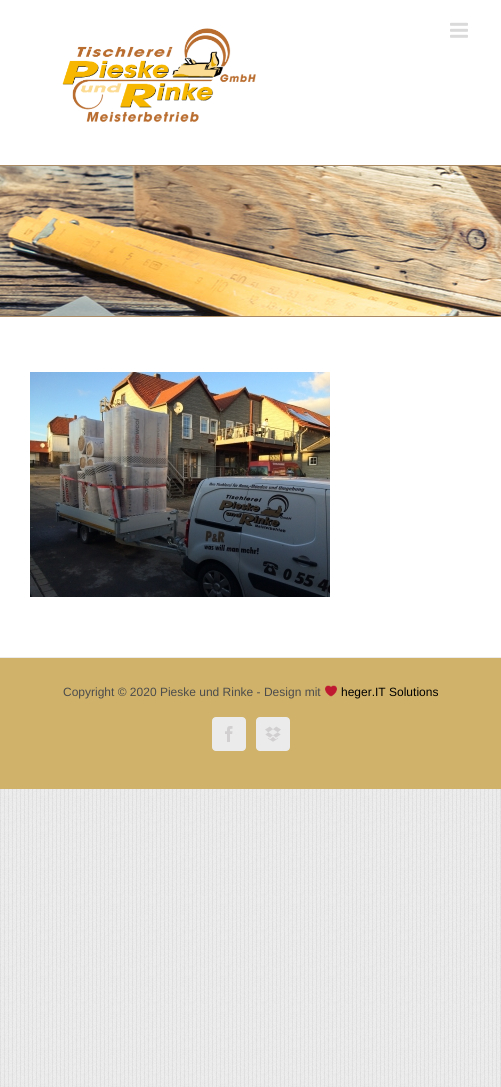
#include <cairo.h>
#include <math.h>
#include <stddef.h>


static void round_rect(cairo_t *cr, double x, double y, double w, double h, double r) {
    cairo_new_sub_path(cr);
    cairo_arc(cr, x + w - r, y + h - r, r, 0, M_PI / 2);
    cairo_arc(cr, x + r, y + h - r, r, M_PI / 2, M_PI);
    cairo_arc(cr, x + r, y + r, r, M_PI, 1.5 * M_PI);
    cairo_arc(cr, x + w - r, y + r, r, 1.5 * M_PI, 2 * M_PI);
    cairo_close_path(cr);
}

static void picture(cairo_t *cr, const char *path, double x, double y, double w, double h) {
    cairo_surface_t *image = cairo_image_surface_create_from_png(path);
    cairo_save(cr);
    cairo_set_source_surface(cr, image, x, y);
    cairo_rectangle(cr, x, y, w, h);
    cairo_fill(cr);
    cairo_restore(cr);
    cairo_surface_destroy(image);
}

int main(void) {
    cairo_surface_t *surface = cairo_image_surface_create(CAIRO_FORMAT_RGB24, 501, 1087);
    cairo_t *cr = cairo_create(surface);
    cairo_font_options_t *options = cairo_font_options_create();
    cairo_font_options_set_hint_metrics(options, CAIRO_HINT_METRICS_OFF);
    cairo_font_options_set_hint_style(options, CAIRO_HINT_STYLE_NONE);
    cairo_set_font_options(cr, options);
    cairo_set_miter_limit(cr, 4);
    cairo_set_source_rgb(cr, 1, 1, 1);
    cairo_paint(cr);
    picture(cr, "img1.png", 0, 789, 501, 298);
    picture(cr, "img2.png", 62, 28, 194, 95);
    picture(cr, "img3.png", 450, 22, 18, 16);
    picture(cr, "img4.png", 0, 166, 501, 150);
    cairo_set_source_rgb(cr, 0.671, 0.545, 0.396);
    cairo_rectangle(cr, 0, 165, 501, 1);
    cairo_fill(cr);
    cairo_rectangle(cr, 0, 316, 501, 1);
    cairo_fill(cr);
    picture(cr, "img5.png", 30, 372, 300, 225);
    cairo_set_source_rgb(cr, 0.816, 0.698, 0.416);
    cairo_rectangle(cr, 0, 658, 501, 131);
    cairo_fill(cr);
    cairo_set_source_rgb(cr, 0.918, 0.918, 0.918);
    cairo_rectangle(cr, 0, 657, 501, 1);
    cairo_fill(cr);
    cairo_select_font_face(cr, "Liberation Sans", CAIRO_FONT_SLANT_NORMAL, CAIRO_FONT_WEIGHT_NORMAL);
    cairo_set_font_size(cr, 12);
    cairo_set_source_rgb(cr, 0.298, 0.298, 0.298);
    cairo_move_to(cr, 63, 696);
    cairo_show_text(cr, "Copyright © 2020 Pieske und Rinke - Design mit");
    picture(cr, "img6.png", 325, 685, 12, 12);
    cairo_set_source_rgb(cr, 0, 0, 0);
    cairo_move_to(cr, 341, 696);
    cairo_show_text(cr, "heger.IT Solutions");
    cairo_set_source_rgb(cr, 0.918, 0.918, 0.918);
    round_rect(cr, 212.5, 717.5, 33, 33, 3.5);
    cairo_fill_preserve(cr);
    cairo_set_line_width(cr, 1);
    cairo_stroke(cr);
    picture(cr, "img7.png", 225, 726, 8, 16);
    round_rect(cr, 256.5, 717.5, 33, 33, 3.5);
    cairo_fill_preserve(cr);
    cairo_stroke(cr);
    picture(cr, "img8.png", 265, 726, 16, 16);
    cairo_surface_write_to_png(surface, "page.png");
    cairo_font_options_destroy(options);
    cairo_destroy(cr);
    cairo_surface_destroy(surface);
    return 0;
}
